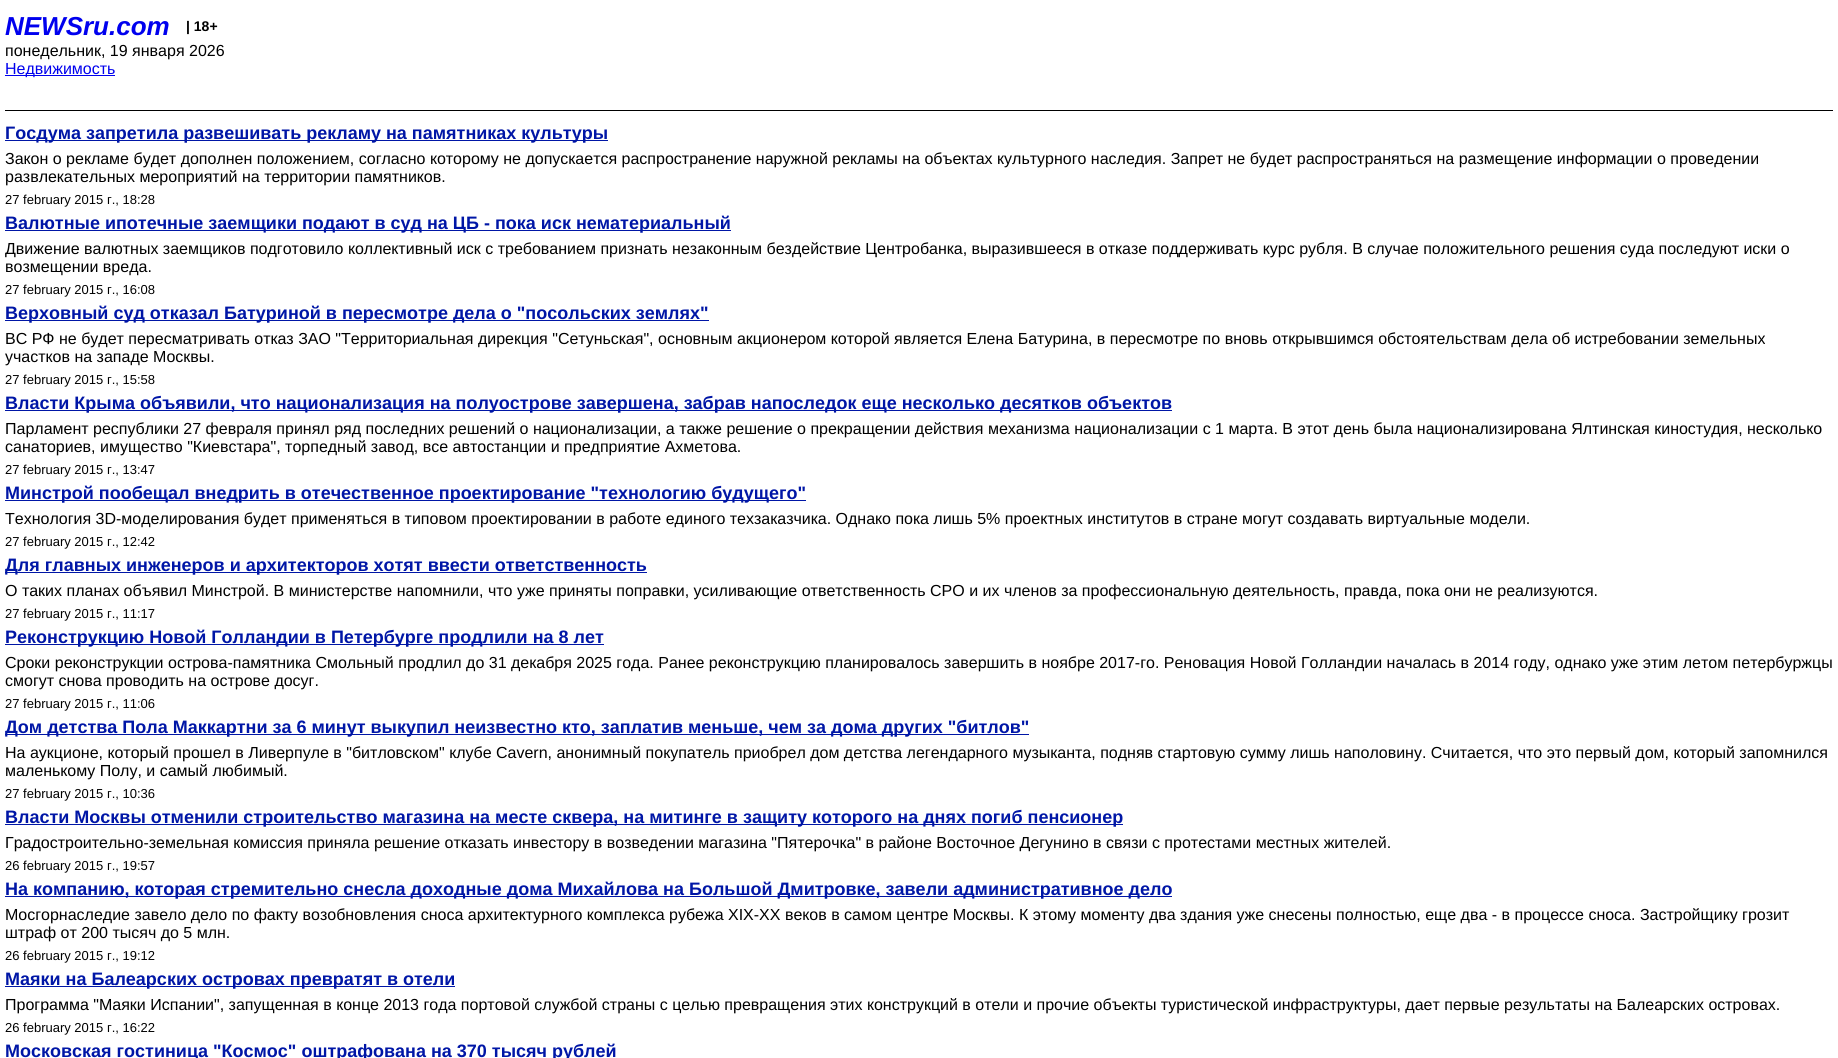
#include <cairo.h>
#include <math.h>
#include <stddef.h>


int main(void) {
    cairo_surface_t *surface = cairo_image_surface_create(CAIRO_FORMAT_RGB24, 1838, 1058);
    cairo_t *cr = cairo_create(surface);
    cairo_font_options_t *options = cairo_font_options_create();
    cairo_font_options_set_hint_metrics(options, CAIRO_HINT_METRICS_OFF);
    cairo_font_options_set_hint_style(options, CAIRO_HINT_STYLE_NONE);
    cairo_set_font_options(cr, options);
    cairo_set_miter_limit(cr, 4);
    cairo_set_source_rgb(cr, 1, 1, 1);
    cairo_paint(cr);
    cairo_set_source_rgb(cr, 0, 0, 0);
    cairo_rectangle(cr, 5, 110, 1828, 1);
    cairo_fill(cr);
    cairo_select_font_face(cr, "Liberation Sans", CAIRO_FONT_SLANT_ITALIC, CAIRO_FONT_WEIGHT_BOLD);
    cairo_set_font_size(cr, 26);
    cairo_set_source_rgb(cr, 0, 0, 0.933);
    cairo_move_to(cr, 5, 35);
    cairo_show_text(cr, "NEWSru.com");
    cairo_select_font_face(cr, "Liberation Sans", CAIRO_FONT_SLANT_NORMAL, CAIRO_FONT_WEIGHT_BOLD);
    cairo_set_font_size(cr, 14);
    cairo_set_source_rgb(cr, 0, 0, 0);
    cairo_move_to(cr, 186, 31);
    cairo_show_text(cr, "| 18+");
    cairo_select_font_face(cr, "Liberation Sans", CAIRO_FONT_SLANT_NORMAL, CAIRO_FONT_WEIGHT_NORMAL);
    cairo_set_font_size(cr, 16);
    cairo_move_to(cr, 5, 56);
    cairo_show_text(cr, "понедельник, 19 января 2026");
    cairo_set_source_rgb(cr, 0, 0, 0.933);
    cairo_rectangle(cr, 5, 75, 110, 1);
    cairo_fill(cr);
    cairo_move_to(cr, 5, 74);
    cairo_show_text(cr, "Недвижимость");
    cairo_set_source_rgb(cr, 0, 0.086, 0.651);
    cairo_rectangle(cr, 5, 140, 603, 1);
    cairo_fill(cr);
    cairo_select_font_face(cr, "Liberation Sans", CAIRO_FONT_SLANT_NORMAL, CAIRO_FONT_WEIGHT_BOLD);
    cairo_set_font_size(cr, 18);
    cairo_move_to(cr, 5, 139);
    cairo_show_text(cr, "Госдума запретила развешивать рекламу на памятниках культуры");
    cairo_select_font_face(cr, "Liberation Sans", CAIRO_FONT_SLANT_NORMAL, CAIRO_FONT_WEIGHT_NORMAL);
    cairo_set_font_size(cr, 16);
    cairo_set_source_rgb(cr, 0, 0, 0);
    cairo_move_to(cr, 5, 164);
    cairo_show_text(cr, "Закон о рекламе будет дополнен положением, согласно которому не допускается распространение наружной рекламы на объектах культурного наследия. Запрет не будет распространяться на размещение информации о проведении");
    cairo_move_to(cr, 5, 182);
    cairo_show_text(cr, "развлекательных мероприятий на территории памятников.");
    cairo_set_font_size(cr, 13);
    cairo_move_to(cr, 5, 204);
    cairo_show_text(cr, "27 february 2015 г., 18:28");
    cairo_set_source_rgb(cr, 0, 0.086, 0.651);
    cairo_rectangle(cr, 5, 230, 726, 1);
    cairo_fill(cr);
    cairo_select_font_face(cr, "Liberation Sans", CAIRO_FONT_SLANT_NORMAL, CAIRO_FONT_WEIGHT_BOLD);
    cairo_set_font_size(cr, 18);
    cairo_move_to(cr, 5, 229);
    cairo_show_text(cr, "Валютные ипотечные заемщики подают в суд на ЦБ - пока иск нематериальный");
    cairo_select_font_face(cr, "Liberation Sans", CAIRO_FONT_SLANT_NORMAL, CAIRO_FONT_WEIGHT_NORMAL);
    cairo_set_font_size(cr, 16);
    cairo_set_source_rgb(cr, 0, 0, 0);
    cairo_move_to(cr, 5, 254);
    cairo_show_text(cr, "Движение валютных заемщиков подготовило коллективный иск с требованием признать незаконным бездействие Центробанка, выразившееся в отказе поддерживать курс рубля. В случае положительного решения суда последуют иски о");
    cairo_move_to(cr, 5, 272);
    cairo_show_text(cr, "возмещении вреда.");
    cairo_set_font_size(cr, 13);
    cairo_move_to(cr, 5, 294);
    cairo_show_text(cr, "27 february 2015 г., 16:08");
    cairo_set_source_rgb(cr, 0, 0.086, 0.651);
    cairo_rectangle(cr, 5, 320, 704, 1);
    cairo_fill(cr);
    cairo_select_font_face(cr, "Liberation Sans", CAIRO_FONT_SLANT_NORMAL, CAIRO_FONT_WEIGHT_BOLD);
    cairo_set_font_size(cr, 18);
    cairo_move_to(cr, 5, 319);
    cairo_show_text(cr, "Верховный суд отказал Батуриной в пересмотре дела о \"посольских землях\"");
    cairo_select_font_face(cr, "Liberation Sans", CAIRO_FONT_SLANT_NORMAL, CAIRO_FONT_WEIGHT_NORMAL);
    cairo_set_font_size(cr, 16);
    cairo_set_source_rgb(cr, 0, 0, 0);
    cairo_move_to(cr, 5, 344);
    cairo_show_text(cr, "ВС РФ не будет пересматривать отказ ЗАО \"Территориальная дирекция \"Сетуньская\", основным акционером которой является Елена Батурина, в пересмотре по вновь открывшимся обстоятельствам дела об истребовании земельных");
    cairo_move_to(cr, 5, 362);
    cairo_show_text(cr, "участков на западе Москвы.");
    cairo_set_font_size(cr, 13);
    cairo_move_to(cr, 5, 384);
    cairo_show_text(cr, "27 february 2015 г., 15:58");
    cairo_set_source_rgb(cr, 0, 0.086, 0.651);
    cairo_rectangle(cr, 5, 410, 1167, 1);
    cairo_fill(cr);
    cairo_select_font_face(cr, "Liberation Sans", CAIRO_FONT_SLANT_NORMAL, CAIRO_FONT_WEIGHT_BOLD);
    cairo_set_font_size(cr, 18);
    cairo_move_to(cr, 5, 409);
    cairo_show_text(cr, "Власти Крыма объявили, что национализация на полуострове завершена, забрав напоследок еще несколько десятков объектов");
    cairo_select_font_face(cr, "Liberation Sans", CAIRO_FONT_SLANT_NORMAL, CAIRO_FONT_WEIGHT_NORMAL);
    cairo_set_font_size(cr, 16);
    cairo_set_source_rgb(cr, 0, 0, 0);
    cairo_move_to(cr, 5, 434);
    cairo_show_text(cr, "Парламент республики 27 февраля принял ряд последних решений о национализации, а также решение о прекращении действия механизма национализации с 1 марта. В этот день была национализирована Ялтинская киностудия, несколько");
    cairo_move_to(cr, 5, 452);
    cairo_show_text(cr, "санаториев, имущество \"Киевстара\", торпедный завод, все автостанции и предприятие Ахметова.");
    cairo_set_font_size(cr, 13);
    cairo_move_to(cr, 5, 474);
    cairo_show_text(cr, "27 february 2015 г., 13:47");
    cairo_set_source_rgb(cr, 0, 0.086, 0.651);
    cairo_rectangle(cr, 5, 500, 801, 1);
    cairo_fill(cr);
    cairo_select_font_face(cr, "Liberation Sans", CAIRO_FONT_SLANT_NORMAL, CAIRO_FONT_WEIGHT_BOLD);
    cairo_set_font_size(cr, 18);
    cairo_move_to(cr, 5, 499);
    cairo_show_text(cr, "Минстрой пообещал внедрить в отечественное проектирование \"технологию будущего\"");
    cairo_select_font_face(cr, "Liberation Sans", CAIRO_FONT_SLANT_NORMAL, CAIRO_FONT_WEIGHT_NORMAL);
    cairo_set_font_size(cr, 16);
    cairo_set_source_rgb(cr, 0, 0, 0);
    cairo_move_to(cr, 5, 524);
    cairo_show_text(cr, "Технология 3D-моделирования будет применяться в типовом проектировании в работе единого техзаказчика. Однако пока лишь 5% проектных институтов в стране могут создавать виртуальные модели.");
    cairo_set_font_size(cr, 13);
    cairo_move_to(cr, 5, 546);
    cairo_show_text(cr, "27 february 2015 г., 12:42");
    cairo_set_source_rgb(cr, 0, 0.086, 0.651);
    cairo_rectangle(cr, 5, 572, 642, 1);
    cairo_fill(cr);
    cairo_select_font_face(cr, "Liberation Sans", CAIRO_FONT_SLANT_NORMAL, CAIRO_FONT_WEIGHT_BOLD);
    cairo_set_font_size(cr, 18);
    cairo_move_to(cr, 5, 571);
    cairo_show_text(cr, "Для главных инженеров и архитекторов хотят ввести ответственность");
    cairo_select_font_face(cr, "Liberation Sans", CAIRO_FONT_SLANT_NORMAL, CAIRO_FONT_WEIGHT_NORMAL);
    cairo_set_font_size(cr, 16);
    cairo_set_source_rgb(cr, 0, 0, 0);
    cairo_move_to(cr, 5, 596);
    cairo_show_text(cr, "О таких планах объявил Минстрой. В министерстве напомнили, что уже приняты поправки, усиливающие ответственность СРО и их членов за профессиональную деятельность, правда, пока они не реализуются.");
    cairo_set_font_size(cr, 13);
    cairo_move_to(cr, 5, 618);
    cairo_show_text(cr, "27 february 2015 г., 11:17");
    cairo_set_source_rgb(cr, 0, 0.086, 0.651);
    cairo_rectangle(cr, 5, 644, 599, 1);
    cairo_fill(cr);
    cairo_select_font_face(cr, "Liberation Sans", CAIRO_FONT_SLANT_NORMAL, CAIRO_FONT_WEIGHT_BOLD);
    cairo_set_font_size(cr, 18);
    cairo_move_to(cr, 5, 643);
    cairo_show_text(cr, "Реконструкцию Новой Голландии в Петербурге продлили на 8 лет");
    cairo_select_font_face(cr, "Liberation Sans", CAIRO_FONT_SLANT_NORMAL, CAIRO_FONT_WEIGHT_NORMAL);
    cairo_set_font_size(cr, 16);
    cairo_set_source_rgb(cr, 0, 0, 0);
    cairo_move_to(cr, 5, 668);
    cairo_show_text(cr, "Сроки реконструкции острова-памятника Смольный продлил до 31 декабря 2025 года. Ранее реконструкцию планировалось завершить в ноябре 2017-го. Реновация Новой Голландии началась в 2014 году, однако уже этим летом петербуржцы");
    cairo_move_to(cr, 5, 686);
    cairo_show_text(cr, "смогут снова проводить на острове досуг.");
    cairo_set_font_size(cr, 13);
    cairo_move_to(cr, 5, 708);
    cairo_show_text(cr, "27 february 2015 г., 11:06");
    cairo_set_source_rgb(cr, 0, 0.086, 0.651);
    cairo_rectangle(cr, 5, 734, 1024, 1);
    cairo_fill(cr);
    cairo_select_font_face(cr, "Liberation Sans", CAIRO_FONT_SLANT_NORMAL, CAIRO_FONT_WEIGHT_BOLD);
    cairo_set_font_size(cr, 18);
    cairo_move_to(cr, 5, 733);
    cairo_show_text(cr, "Дом детства Пола Маккартни за 6 минут выкупил неизвестно кто, заплатив меньше, чем за дома других \"битлов\"");
    cairo_select_font_face(cr, "Liberation Sans", CAIRO_FONT_SLANT_NORMAL, CAIRO_FONT_WEIGHT_NORMAL);
    cairo_set_font_size(cr, 16);
    cairo_set_source_rgb(cr, 0, 0, 0);
    cairo_move_to(cr, 5, 758);
    cairo_show_text(cr, "На аукционе, который прошел в Ливерпуле в \"битловском\" клубе Cavern, анонимный покупатель приобрел дом детства легендарного музыканта, подняв стартовую сумму лишь наполовину. Считается, что это первый дом, который запомнился");
    cairo_move_to(cr, 5, 776);
    cairo_show_text(cr, "маленькому Полу, и самый любимый.");
    cairo_set_font_size(cr, 13);
    cairo_move_to(cr, 5, 798);
    cairo_show_text(cr, "27 february 2015 г., 10:36");
    cairo_set_source_rgb(cr, 0, 0.086, 0.651);
    cairo_rectangle(cr, 5, 824, 1118, 1);
    cairo_fill(cr);
    cairo_select_font_face(cr, "Liberation Sans", CAIRO_FONT_SLANT_NORMAL, CAIRO_FONT_WEIGHT_BOLD);
    cairo_set_font_size(cr, 18);
    cairo_move_to(cr, 5, 823);
    cairo_show_text(cr, "Власти Москвы отменили строительство магазина на месте сквера, на митинге в защиту которого на днях погиб пенсионер");
    cairo_select_font_face(cr, "Liberation Sans", CAIRO_FONT_SLANT_NORMAL, CAIRO_FONT_WEIGHT_NORMAL);
    cairo_set_font_size(cr, 16);
    cairo_set_source_rgb(cr, 0, 0, 0);
    cairo_move_to(cr, 5, 848);
    cairo_show_text(cr, "Градостроительно-земельная комиссия приняла решение отказать инвестору в возведении магазина \"Пятерочка\" в районе Восточное Дегунино в связи с протестами местных жителей.");
    cairo_set_font_size(cr, 13);
    cairo_move_to(cr, 5, 870);
    cairo_show_text(cr, "26 february 2015 г., 19:57");
    cairo_set_source_rgb(cr, 0, 0.086, 0.651);
    cairo_rectangle(cr, 5, 896, 1167, 1);
    cairo_fill(cr);
    cairo_select_font_face(cr, "Liberation Sans", CAIRO_FONT_SLANT_NORMAL, CAIRO_FONT_WEIGHT_BOLD);
    cairo_set_font_size(cr, 18);
    cairo_move_to(cr, 5, 895);
    cairo_show_text(cr, "На компанию, которая стремительно снесла доходные дома Михайлова на Большой Дмитровке, завели административное дело");
    cairo_select_font_face(cr, "Liberation Sans", CAIRO_FONT_SLANT_NORMAL, CAIRO_FONT_WEIGHT_NORMAL);
    cairo_set_font_size(cr, 16);
    cairo_set_source_rgb(cr, 0, 0, 0);
    cairo_move_to(cr, 5, 920);
    cairo_show_text(cr, "Мосгорнаследие завело дело по факту возобновления сноса архитектурного комплекса рубежа XIX-XX веков в самом центре Москвы. К этому моменту два здания уже снесены полностью, еще два - в процессе сноса. Застройщику грозит");
    cairo_move_to(cr, 5, 938);
    cairo_show_text(cr, "штраф от 200 тысяч до 5 млн.");
    cairo_set_font_size(cr, 13);
    cairo_move_to(cr, 5, 960);
    cairo_show_text(cr, "26 february 2015 г., 19:12");
    cairo_set_source_rgb(cr, 0, 0.086, 0.651);
    cairo_rectangle(cr, 5, 986, 450, 1);
    cairo_fill(cr);
    cairo_select_font_face(cr, "Liberation Sans", CAIRO_FONT_SLANT_NORMAL, CAIRO_FONT_WEIGHT_BOLD);
    cairo_set_font_size(cr, 18);
    cairo_move_to(cr, 5, 985);
    cairo_show_text(cr, "Маяки на Балеарских островах превратят в отели");
    cairo_select_font_face(cr, "Liberation Sans", CAIRO_FONT_SLANT_NORMAL, CAIRO_FONT_WEIGHT_NORMAL);
    cairo_set_font_size(cr, 16);
    cairo_set_source_rgb(cr, 0, 0, 0);
    cairo_move_to(cr, 5, 1010);
    cairo_show_text(cr, "Программа \"Маяки Испании\", запущенная в конце 2013 года портовой службой страны с целью превращения этих конструкций в отели и прочие объекты туристической инфраструктуры, дает первые результаты на Балеарских островах.");
    cairo_set_font_size(cr, 13);
    cairo_move_to(cr, 5, 1032);
    cairo_show_text(cr, "26 february 2015 г., 16:22");
    cairo_select_font_face(cr, "Liberation Sans", CAIRO_FONT_SLANT_NORMAL, CAIRO_FONT_WEIGHT_BOLD);
    cairo_set_font_size(cr, 18);
    cairo_set_source_rgb(cr, 0, 0.086, 0.651);
    cairo_move_to(cr, 5, 1057);
    cairo_show_text(cr, "Московская гостиница \"Космос\" оштрафована на 370 тысяч рублей");
    cairo_surface_write_to_png(surface, "page.png");
    cairo_font_options_destroy(options);
    cairo_destroy(cr);
    cairo_surface_destroy(surface);
    return 0;
}
